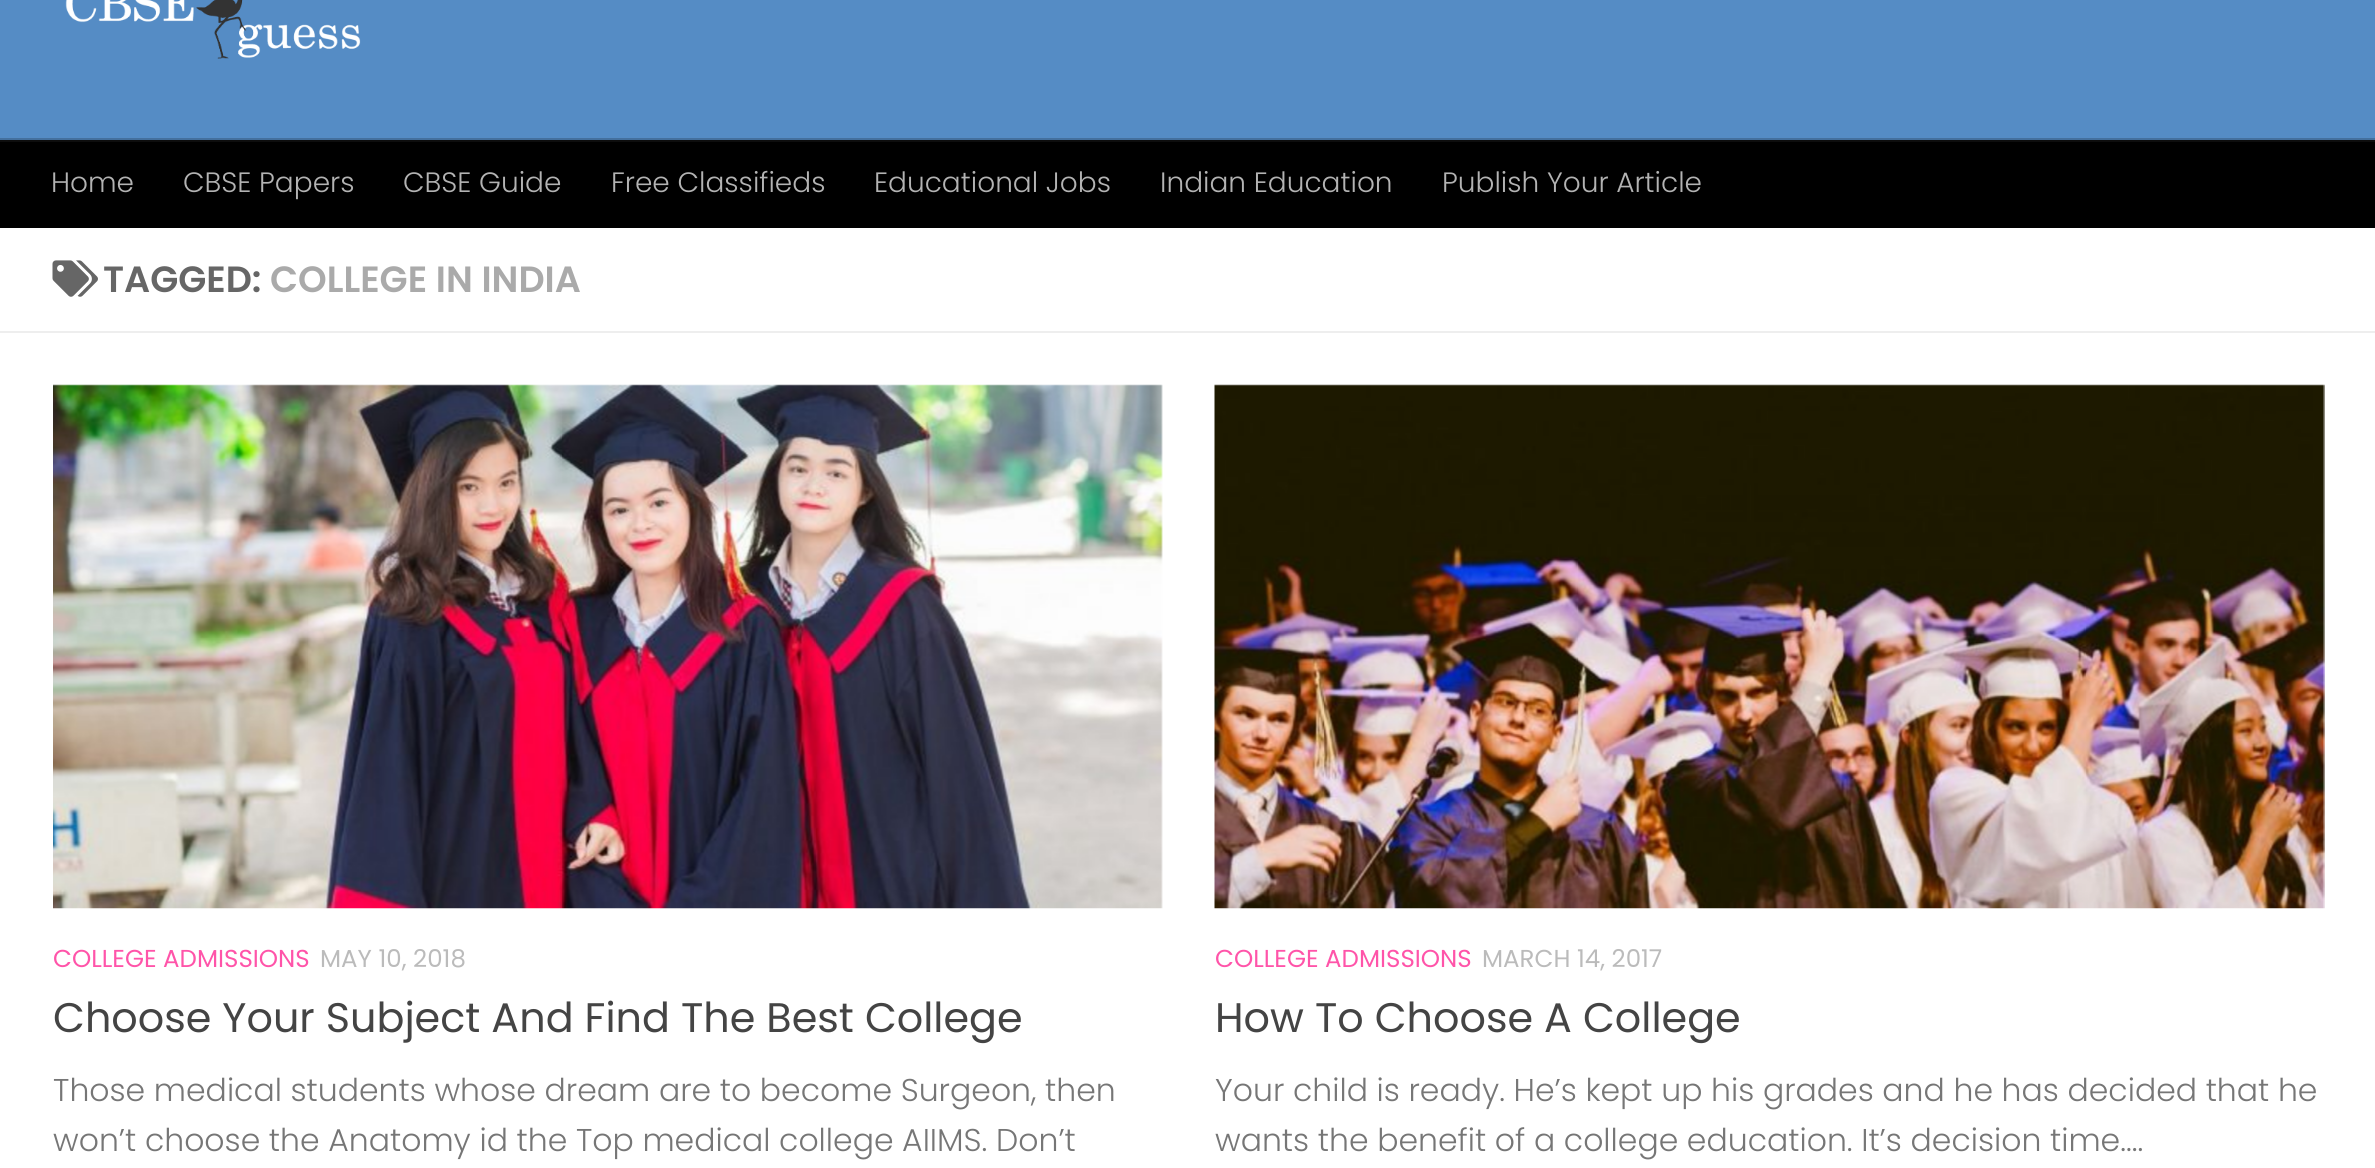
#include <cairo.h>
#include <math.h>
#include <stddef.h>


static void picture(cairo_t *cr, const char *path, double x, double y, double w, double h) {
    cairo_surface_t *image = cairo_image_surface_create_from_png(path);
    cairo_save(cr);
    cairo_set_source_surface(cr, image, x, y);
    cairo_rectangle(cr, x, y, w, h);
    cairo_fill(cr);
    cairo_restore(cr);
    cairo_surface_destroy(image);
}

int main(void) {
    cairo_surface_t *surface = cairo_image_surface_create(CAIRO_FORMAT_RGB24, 2375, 1168);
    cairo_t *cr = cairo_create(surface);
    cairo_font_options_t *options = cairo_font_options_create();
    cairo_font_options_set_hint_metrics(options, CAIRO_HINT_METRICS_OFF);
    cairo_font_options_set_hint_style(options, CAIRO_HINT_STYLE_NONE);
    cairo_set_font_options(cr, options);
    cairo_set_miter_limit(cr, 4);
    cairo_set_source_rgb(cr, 0.333, 0.549, 0.773);
    cairo_paint(cr);
    picture(cr, "img1.png", 65, 0, 296, 59);
    cairo_set_source_rgb(cr, 0.267, 0.439, 0.62);
    cairo_new_path(cr);
    cairo_move_to(cr, 0, 138);
    cairo_line_to(cr, 0, 140);
    cairo_line_to(cr, 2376, 140);
    cairo_line_to(cr, 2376, 226);
    cairo_line_to(cr, 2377, 226);
    cairo_line_to(cr, 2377, 138);
    cairo_close_path(cr);
    cairo_fill(cr);
    cairo_set_source_rgb(cr, 0, 0, 0);
    cairo_rectangle(cr, 0, 142, 2375, 86);
    cairo_fill(cr);
    cairo_set_source_rgb(cr, 0.051, 0.051, 0.051);
    cairo_rectangle(cr, 0, 140, 2375, 2);
    cairo_fill(cr);
    cairo_select_font_face(cr, "Poppins Light", CAIRO_FONT_SLANT_NORMAL, CAIRO_FONT_WEIGHT_NORMAL);
    cairo_set_font_size(cr, 28);
    cairo_set_source_rgb(cr, 0.702, 0.702, 0.702);
    cairo_move_to(cr, 51, 192);
    cairo_show_text(cr, "Home");
    cairo_move_to(cr, 183, 192);
    cairo_show_text(cr, "CBSE Papers");
    cairo_move_to(cr, 403, 192);
    cairo_show_text(cr, "CBSE Guide");
    cairo_move_to(cr, 611, 192);
    cairo_show_text(cr, "Free Classifieds");
    cairo_move_to(cr, 874, 192);
    cairo_show_text(cr, "Educational Jobs");
    cairo_move_to(cr, 1160, 192);
    cairo_show_text(cr, "Indian Education");
    cairo_move_to(cr, 1442, 192);
    cairo_show_text(cr, "Publish Your Article");
    cairo_set_source_rgb(cr, 1, 1, 1);
    cairo_rectangle(cr, 0, 228, 2375, 940);
    cairo_fill(cr);
    cairo_set_source_rgb(cr, 0.933, 0.933, 0.933);
    cairo_rectangle(cr, 0, 331, 2375, 2);
    cairo_fill(cr);
    picture(cr, "img2.png", 52, 260, 46, 37);
    cairo_select_font_face(cr, "Poppins SemiBold", CAIRO_FONT_SLANT_NORMAL, CAIRO_FONT_WEIGHT_NORMAL);
    cairo_set_font_size(cr, 36.5);
    cairo_set_source_rgb(cr, 0.4, 0.4, 0.4);
    cairo_move_to(cr, 103, 292);
    cairo_show_text(cr, "TAGGED:");
    cairo_set_source_rgb(cr, 0.667, 0.667, 0.667);
    cairo_move_to(cr, 270, 292);
    cairo_show_text(cr, "COLLEGE IN INDIA");
    picture(cr, "img3.png", 53, 384, 1110, 525);
    cairo_select_font_face(cr, "Poppins", CAIRO_FONT_SLANT_NORMAL, CAIRO_FONT_WEIGHT_NORMAL);
    cairo_set_font_size(cr, 24.5);
    cairo_set_source_rgb(cr, 1, 0.329, 0.663);
    cairo_move_to(cr, 53, 967);
    cairo_show_text(cr, "COLLEGE ADMISSIONS");
    cairo_set_source_rgb(cr, 0.733, 0.733, 0.733);
    cairo_move_to(cr, 320, 967);
    cairo_show_text(cr, "MAY 10, 2018");
    cairo_set_font_size(cr, 41.3);
    cairo_set_source_rgb(cr, 0.267, 0.267, 0.267);
    cairo_move_to(cr, 53, 1032);
    cairo_show_text(cr, "Choose Your Subject And Find The Best College");
    cairo_select_font_face(cr, "Poppins Light", CAIRO_FONT_SLANT_NORMAL, CAIRO_FONT_WEIGHT_NORMAL);
    cairo_set_font_size(cr, 31.5);
    cairo_set_source_rgb(cr, 0.463, 0.463, 0.463);
    cairo_move_to(cr, 53, 1101);
    cairo_show_text(cr, "Those medical students whose dream are to become Surgeon, then");
    cairo_move_to(cr, 53, 1151);
    cairo_show_text(cr, "won’t choose the Anatomy id the Top medical college AIIMS. Don’t");
    picture(cr, "img4.png", 1214, 384, 1111, 525);
    cairo_select_font_face(cr, "Poppins", CAIRO_FONT_SLANT_NORMAL, CAIRO_FONT_WEIGHT_NORMAL);
    cairo_set_font_size(cr, 24.5);
    cairo_set_source_rgb(cr, 1, 0.329, 0.663);
    cairo_move_to(cr, 1215, 967);
    cairo_show_text(cr, "COLLEGE ADMISSIONS");
    cairo_set_source_rgb(cr, 0.733, 0.733, 0.733);
    cairo_move_to(cr, 1482, 967);
    cairo_show_text(cr, "MARCH 14, 2017");
    cairo_set_font_size(cr, 41.3);
    cairo_set_source_rgb(cr, 0.267, 0.267, 0.267);
    cairo_move_to(cr, 1215, 1032);
    cairo_show_text(cr, "How To Choose A College");
    cairo_select_font_face(cr, "Poppins Light", CAIRO_FONT_SLANT_NORMAL, CAIRO_FONT_WEIGHT_NORMAL);
    cairo_set_font_size(cr, 31.5);
    cairo_set_source_rgb(cr, 0.463, 0.463, 0.463);
    cairo_move_to(cr, 1215, 1101);
    cairo_show_text(cr, "Your child is ready. He’s kept up his grades and he has decided that he");
    cairo_move_to(cr, 1215, 1151);
    cairo_show_text(cr, "wants the benefit of a college education. It’s decision time....");
    cairo_surface_write_to_png(surface, "page.png");
    cairo_font_options_destroy(options);
    cairo_destroy(cr);
    cairo_surface_destroy(surface);
    return 0;
}
